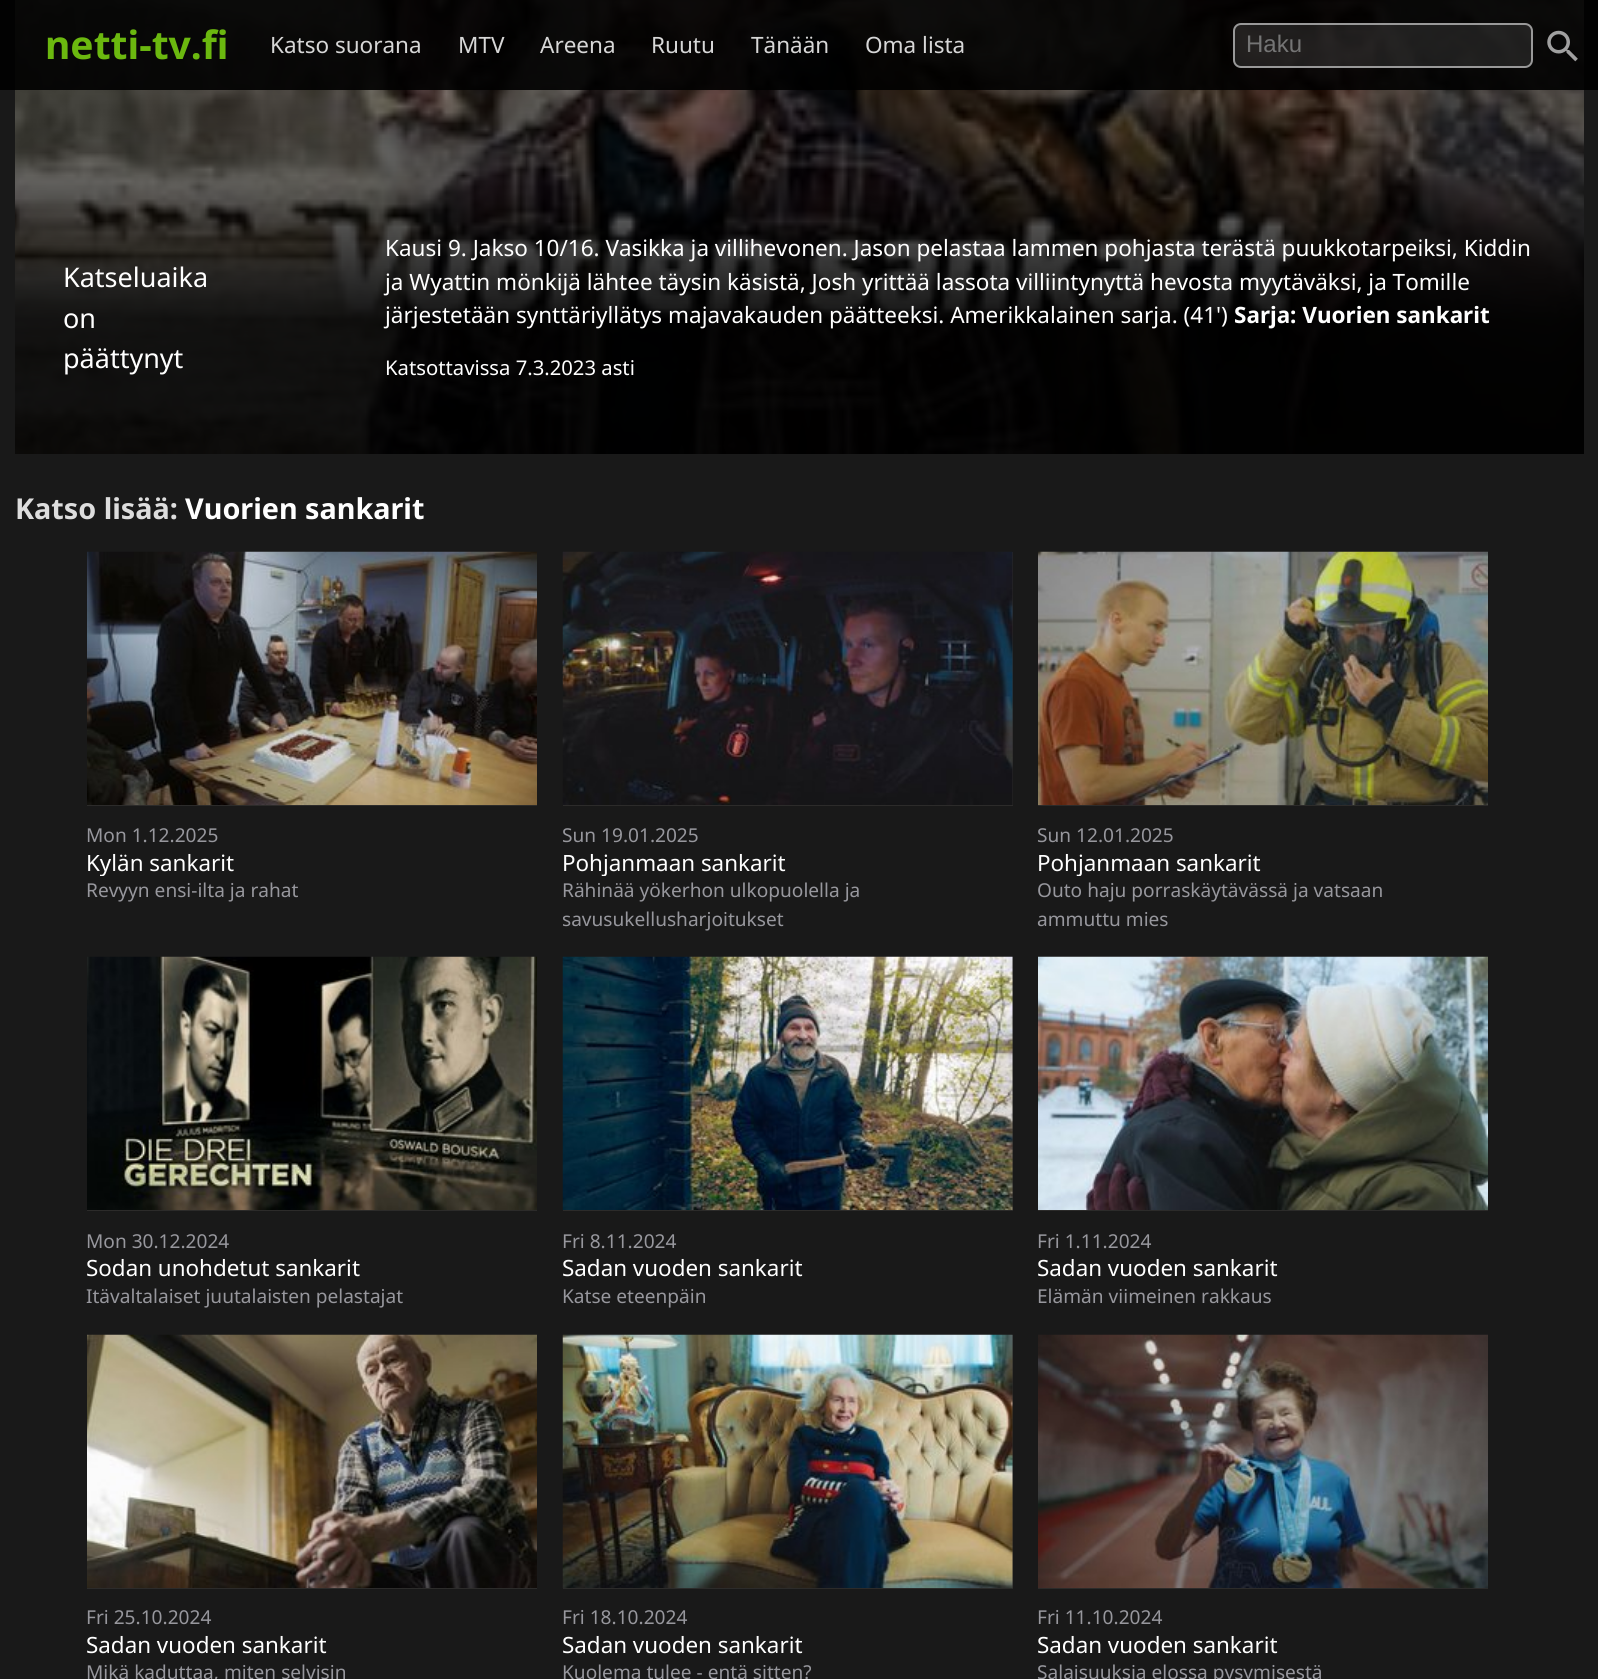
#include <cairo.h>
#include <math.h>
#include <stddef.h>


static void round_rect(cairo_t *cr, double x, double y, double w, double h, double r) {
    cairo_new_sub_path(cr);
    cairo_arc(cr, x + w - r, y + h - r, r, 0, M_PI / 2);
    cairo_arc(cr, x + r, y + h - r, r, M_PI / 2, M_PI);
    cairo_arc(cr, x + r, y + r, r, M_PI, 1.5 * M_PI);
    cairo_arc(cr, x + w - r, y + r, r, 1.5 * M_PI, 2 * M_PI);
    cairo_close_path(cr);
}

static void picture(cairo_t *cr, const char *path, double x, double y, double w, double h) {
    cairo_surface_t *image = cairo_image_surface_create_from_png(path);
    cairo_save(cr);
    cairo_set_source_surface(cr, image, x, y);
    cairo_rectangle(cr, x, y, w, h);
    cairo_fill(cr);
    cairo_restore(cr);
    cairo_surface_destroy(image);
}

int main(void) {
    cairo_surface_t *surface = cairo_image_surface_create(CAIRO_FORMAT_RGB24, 1598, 1679);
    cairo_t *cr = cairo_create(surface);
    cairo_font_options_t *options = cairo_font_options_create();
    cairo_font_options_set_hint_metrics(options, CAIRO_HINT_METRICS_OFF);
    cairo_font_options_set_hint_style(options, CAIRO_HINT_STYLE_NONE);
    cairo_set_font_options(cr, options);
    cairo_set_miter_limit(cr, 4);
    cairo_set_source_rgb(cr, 0.098, 0.098, 0.098);
    cairo_paint(cr);
    picture(cr, "img2.png", 15, 0, 1569, 454);
    cairo_set_source_rgba(cr, 0, 0, 0, 0.9);
    cairo_rectangle(cr, 0, 0, 1598, 90);
    cairo_fill(cr);
    cairo_select_font_face(cr, "Noto Sans", CAIRO_FONT_SLANT_NORMAL, CAIRO_FONT_WEIGHT_BOLD);
    cairo_set_font_size(cr, 39);
    cairo_set_source_rgb(cr, 0.42, 0.722, 0.059);
    cairo_move_to(cr, 45, 59);
    cairo_show_text(cr, "netti-tv.fi");
    cairo_select_font_face(cr, "Noto Sans", CAIRO_FONT_SLANT_NORMAL, CAIRO_FONT_WEIGHT_NORMAL);
    cairo_set_font_size(cr, 22.5);
    cairo_set_source_rgb(cr, 0.843, 0.843, 0.843);
    cairo_move_to(cr, 270, 53);
    cairo_show_text(cr, "Katso suorana");
    cairo_move_to(cr, 458, 53);
    cairo_show_text(cr, "MTV");
    cairo_move_to(cr, 540, 53);
    cairo_show_text(cr, "Areena");
    cairo_move_to(cr, 651, 53);
    cairo_show_text(cr, "Ruutu");
    cairo_move_to(cr, 751, 53);
    cairo_show_text(cr, "Tänään");
    cairo_move_to(cr, 865, 53);
    cairo_show_text(cr, "Oma lista");
    cairo_set_source_rgba(cr, 1, 1, 1, 0.1);
    round_rect(cr, 1234, 24, 298, 43, 7);
    cairo_fill_preserve(cr);
    cairo_set_source_rgb(cr, 0.6, 0.6, 0.6);
    cairo_stroke(cr);
    cairo_select_font_face(cr, "Liberation Sans", CAIRO_FONT_SLANT_NORMAL, CAIRO_FONT_WEIGHT_NORMAL);
    cairo_set_font_size(cr, 24);
    cairo_set_source_rgb(cr, 0.459, 0.459, 0.459);
    cairo_move_to(cr, 1246, 52);
    cairo_show_text(cr, "Haku");
    picture(cr, "img1.png", 1547, 30, 31, 32);
    cairo_select_font_face(cr, "Noto Sans", CAIRO_FONT_SLANT_NORMAL, CAIRO_FONT_WEIGHT_NORMAL);
    cairo_set_font_size(cr, 27);
    cairo_set_source_rgb(cr, 1, 1, 1);
    cairo_move_to(cr, 63, 287);
    cairo_show_text(cr, "Katseluaika");
    cairo_move_to(cr, 63, 328);
    cairo_show_text(cr, "on");
    cairo_move_to(cr, 63, 368);
    cairo_show_text(cr, "päättynyt");
    cairo_set_font_size(cr, 22.5);
    cairo_move_to(cr, 385, 256);
    cairo_show_text(cr, "Kausi 9. Jakso 10/16. Vasikka ja villihevonen. Jason pelastaa lammen pohjasta terästä puukkotarpeiksi, Kiddin");
    cairo_move_to(cr, 385, 290);
    cairo_show_text(cr, "ja Wyattin mönkijä lähtee täysin käsistä, Josh yrittää lassota villiintynyttä hevosta myytäväksi, ja Tomille");
    cairo_move_to(cr, 385, 323);
    cairo_show_text(cr, "järjestetään synttäriyllätys majavakauden päätteeksi. Amerikkalainen sarja. (41')");
    cairo_select_font_face(cr, "Noto Sans", CAIRO_FONT_SLANT_NORMAL, CAIRO_FONT_WEIGHT_BOLD);
    cairo_move_to(cr, 1234, 323);
    cairo_show_text(cr, "Sarja: Vuorien sankarit");
    cairo_select_font_face(cr, "Noto Sans", CAIRO_FONT_SLANT_NORMAL, CAIRO_FONT_WEIGHT_NORMAL);
    cairo_set_font_size(cr, 20.25);
    cairo_move_to(cr, 385, 375);
    cairo_show_text(cr, "Katsottavissa 7.3.2023 asti");
    cairo_select_font_face(cr, "Noto Sans", CAIRO_FONT_SLANT_NORMAL, CAIRO_FONT_WEIGHT_BOLD);
    cairo_set_font_size(cr, 28.75);
    cairo_set_source_rgb(cr, 0.867, 0.867, 0.867);
    cairo_move_to(cr, 15, 519);
    cairo_show_text(cr, "Katso lisää:");
    cairo_set_source_rgb(cr, 1, 1, 1);
    cairo_move_to(cr, 185, 519);
    cairo_show_text(cr, "Vuorien sankarit");
    picture(cr, "img3.png", 87, 551, 450, 254);
    cairo_set_source_rgb(cr, 0.173, 0.169, 0.165);
    cairo_rectangle(cr, 87, 805, 450, 1);
    cairo_fill(cr);
    cairo_select_font_face(cr, "Noto Sans", CAIRO_FONT_SLANT_NORMAL, CAIRO_FONT_WEIGHT_NORMAL);
    cairo_set_font_size(cr, 19.1);
    cairo_set_source_rgb(cr, 0.592, 0.592, 0.616);
    cairo_move_to(cr, 86, 842);
    cairo_show_text(cr, "Mon 1.12.2025");
    cairo_save(cr);
    cairo_rectangle(cr, 87, 848, 417, 28);
    cairo_clip(cr);
    cairo_set_font_size(cr, 22.4);
    cairo_set_source_rgb(cr, 1, 1, 1);
    cairo_move_to(cr, 86, 871);
    cairo_show_text(cr, "Kylän sankarit");
    cairo_restore(cr);
    cairo_move_to(cr, 86, 897);
    cairo_show_text(cr, "Revyyn ensi-ilta ja rahat");
    cairo_set_source_rgb(cr, 0.173, 0.169, 0.165);
    cairo_rectangle(cr, 563, 552, 450, 254);
    cairo_fill(cr);
    picture(cr, "img4.png", 562, 551, 451, 254);
    cairo_save(cr);
    cairo_rectangle(cr, 563, 552, 463, 381);
    cairo_clip(cr);
    cairo_set_source_rgb(cr, 0.592, 0.592, 0.616);
    cairo_move_to(cr, 562, 842);
    cairo_show_text(cr, "Sun 19.01.2025");
    cairo_restore(cr);
    cairo_save(cr);
    cairo_rectangle(cr, 563, 848, 417, 28);
    cairo_clip(cr);
    cairo_set_font_size(cr, 22.4);
    cairo_set_source_rgb(cr, 1, 1, 1);
    cairo_move_to(cr, 562, 871);
    cairo_show_text(cr, "Pohjanmaan sankarit");
    cairo_restore(cr);
    cairo_set_source_rgb(cr, 0.592, 0.592, 0.616);
    cairo_move_to(cr, 562, 897);
    cairo_show_text(cr, "Rähinää yökerhon ulkopuolella ja");
    cairo_save(cr);
    cairo_rectangle(cr, 563, 552, 463, 381);
    cairo_clip(cr);
    cairo_move_to(cr, 562, 926);
    cairo_show_text(cr, "savusukellusharjoitukset");
    cairo_restore(cr);
    picture(cr, "img5.png", 1038, 551, 450, 254);
    cairo_set_source_rgb(cr, 0.173, 0.169, 0.165);
    cairo_rectangle(cr, 1038, 805, 450, 1);
    cairo_fill(cr);
    cairo_set_source_rgb(cr, 0.592, 0.592, 0.616);
    cairo_move_to(cr, 1037, 842);
    cairo_show_text(cr, "Sun 12.01.2025");
    cairo_save(cr);
    cairo_rectangle(cr, 1038, 848, 417, 28);
    cairo_clip(cr);
    cairo_set_font_size(cr, 22.4);
    cairo_set_source_rgb(cr, 1, 1, 1);
    cairo_move_to(cr, 1037, 871);
    cairo_show_text(cr, "Pohjanmaan sankarit");
    cairo_restore(cr);
    cairo_move_to(cr, 1037, 897);
    cairo_show_text(cr, "Outo haju porraskäytävässä ja vatsaan");
    cairo_move_to(cr, 1037, 926);
    cairo_show_text(cr, "ammuttu mies");
    picture(cr, "img6.png", 87, 956, 450, 254);
    cairo_set_source_rgb(cr, 0.173, 0.169, 0.165);
    cairo_rectangle(cr, 87, 1210, 450, 1);
    cairo_fill(cr);
    cairo_set_source_rgb(cr, 0.592, 0.592, 0.616);
    cairo_move_to(cr, 86, 1248);
    cairo_show_text(cr, "Mon 30.12.2024");
    cairo_set_font_size(cr, 22.4);
    cairo_set_source_rgb(cr, 1, 1, 1);
    cairo_move_to(cr, 86, 1276);
    cairo_show_text(cr, "Sodan unohdetut sankarit");
    cairo_set_font_size(cr, 19.1);
    cairo_set_source_rgb(cr, 0.592, 0.592, 0.616);
    cairo_move_to(cr, 86, 1303);
    cairo_show_text(cr, "Itävaltalaiset juutalaisten pelastajat");
    cairo_set_source_rgb(cr, 0.173, 0.169, 0.165);
    cairo_rectangle(cr, 563, 957, 450, 254);
    cairo_fill(cr);
    picture(cr, "img7.png", 562, 956, 451, 254);
    cairo_set_source_rgb(cr, 0.592, 0.592, 0.616);
    cairo_move_to(cr, 562, 1248);
    cairo_show_text(cr, "Fri 8.11.2024");
    cairo_set_font_size(cr, 22.4);
    cairo_set_source_rgb(cr, 1, 1, 1);
    cairo_move_to(cr, 562, 1276);
    cairo_show_text(cr, "Sadan vuoden sankarit");
    cairo_set_font_size(cr, 19.1);
    cairo_set_source_rgb(cr, 0.592, 0.592, 0.616);
    cairo_move_to(cr, 562, 1303);
    cairo_show_text(cr, "Katse eteenpäin");
    picture(cr, "img8.png", 1038, 956, 450, 254);
    cairo_set_source_rgb(cr, 0.173, 0.169, 0.165);
    cairo_rectangle(cr, 1038, 1210, 450, 1);
    cairo_fill(cr);
    cairo_set_source_rgb(cr, 0.592, 0.592, 0.616);
    cairo_move_to(cr, 1037, 1248);
    cairo_show_text(cr, "Fri 1.11.2024");
    cairo_set_font_size(cr, 22.4);
    cairo_set_source_rgb(cr, 1, 1, 1);
    cairo_move_to(cr, 1037, 1276);
    cairo_show_text(cr, "Sadan vuoden sankarit");
    cairo_set_font_size(cr, 19.1);
    cairo_set_source_rgb(cr, 0.592, 0.592, 0.616);
    cairo_move_to(cr, 1037, 1303);
    cairo_show_text(cr, "Elämän viimeinen rakkaus");
    picture(cr, "img9.png", 87, 1334, 450, 254);
    cairo_set_source_rgb(cr, 0.173, 0.169, 0.165);
    cairo_rectangle(cr, 87, 1588, 450, 1);
    cairo_fill(cr);
    cairo_set_source_rgb(cr, 0.592, 0.592, 0.616);
    cairo_move_to(cr, 86, 1624);
    cairo_show_text(cr, "Fri 25.10.2024");
    cairo_set_font_size(cr, 22.4);
    cairo_set_source_rgb(cr, 1, 1, 1);
    cairo_move_to(cr, 86, 1653);
    cairo_show_text(cr, "Sadan vuoden sankarit");
    cairo_set_font_size(cr, 19.1);
    cairo_set_source_rgb(cr, 0.592, 0.592, 0.616);
    cairo_move_to(cr, 86, 1679);
    cairo_show_text(cr, "Mikä kaduttaa, miten selvisin");
    cairo_set_source_rgb(cr, 0.173, 0.169, 0.165);
    cairo_rectangle(cr, 563, 1335, 450, 254);
    cairo_fill(cr);
    picture(cr, "img10.png", 562, 1334, 451, 254);
    cairo_set_source_rgb(cr, 0.592, 0.592, 0.616);
    cairo_move_to(cr, 562, 1624);
    cairo_show_text(cr, "Fri 18.10.2024");
    cairo_set_font_size(cr, 22.4);
    cairo_set_source_rgb(cr, 1, 1, 1);
    cairo_move_to(cr, 562, 1653);
    cairo_show_text(cr, "Sadan vuoden sankarit");
    cairo_set_font_size(cr, 19.1);
    cairo_set_source_rgb(cr, 0.592, 0.592, 0.616);
    cairo_move_to(cr, 562, 1679);
    cairo_show_text(cr, "Kuolema tulee - entä sitten?");
    picture(cr, "img11.png", 1038, 1334, 450, 254);
    cairo_set_source_rgb(cr, 0.173, 0.169, 0.165);
    cairo_rectangle(cr, 1038, 1588, 450, 1);
    cairo_fill(cr);
    cairo_set_source_rgb(cr, 0.592, 0.592, 0.616);
    cairo_move_to(cr, 1037, 1624);
    cairo_show_text(cr, "Fri 11.10.2024");
    cairo_set_font_size(cr, 22.4);
    cairo_set_source_rgb(cr, 1, 1, 1);
    cairo_move_to(cr, 1037, 1653);
    cairo_show_text(cr, "Sadan vuoden sankarit");
    cairo_set_font_size(cr, 19.1);
    cairo_set_source_rgb(cr, 0.592, 0.592, 0.616);
    cairo_move_to(cr, 1037, 1679);
    cairo_show_text(cr, "Salaisuuksia elossa pysymisestä");
    cairo_surface_write_to_png(surface, "page.png");
    cairo_font_options_destroy(options);
    cairo_destroy(cr);
    cairo_surface_destroy(surface);
    return 0;
}
